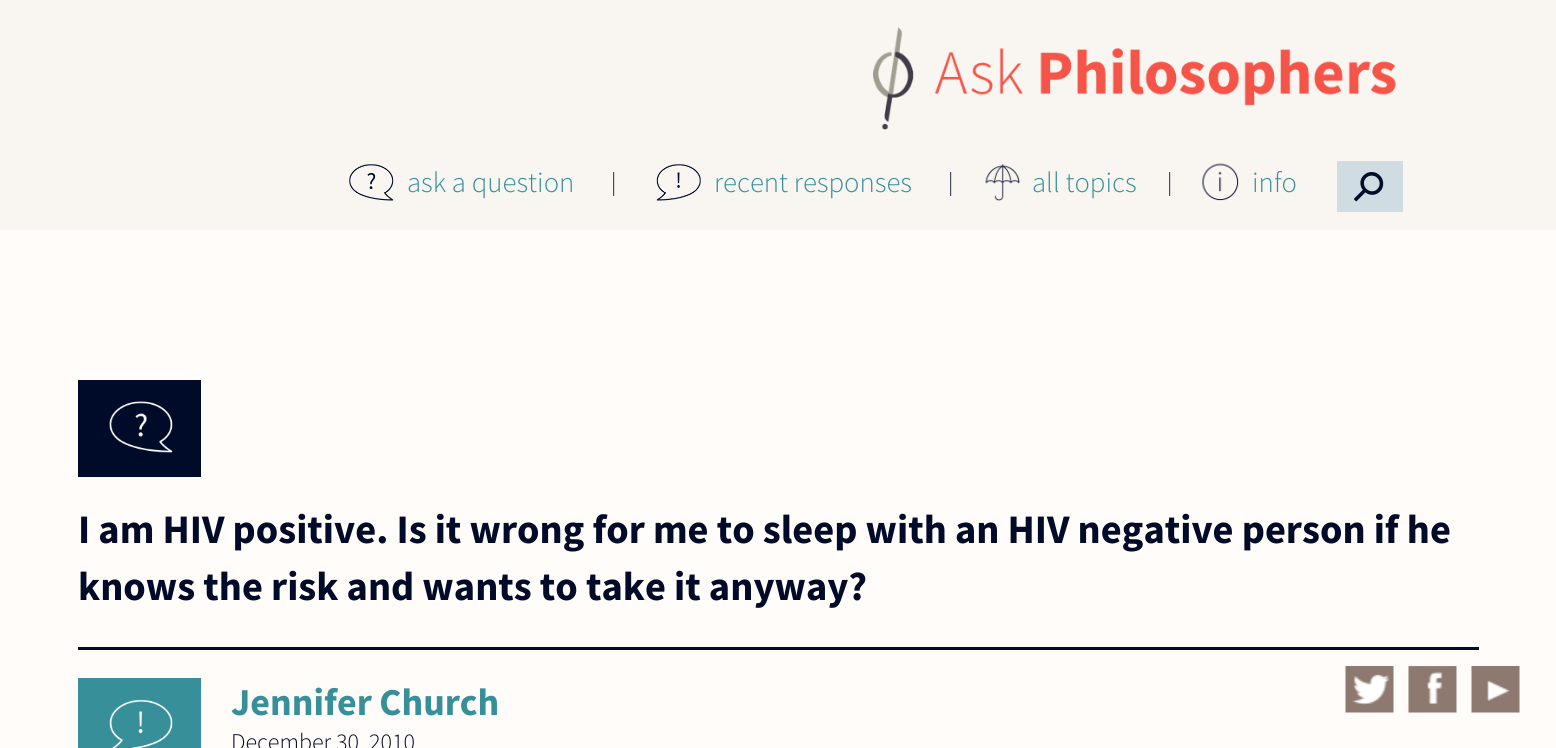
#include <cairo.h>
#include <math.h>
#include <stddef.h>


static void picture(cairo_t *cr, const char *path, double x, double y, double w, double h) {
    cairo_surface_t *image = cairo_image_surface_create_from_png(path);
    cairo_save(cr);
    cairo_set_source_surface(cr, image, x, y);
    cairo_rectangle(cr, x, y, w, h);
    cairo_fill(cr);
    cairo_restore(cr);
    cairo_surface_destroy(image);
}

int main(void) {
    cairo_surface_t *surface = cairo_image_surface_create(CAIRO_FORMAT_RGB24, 1556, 748);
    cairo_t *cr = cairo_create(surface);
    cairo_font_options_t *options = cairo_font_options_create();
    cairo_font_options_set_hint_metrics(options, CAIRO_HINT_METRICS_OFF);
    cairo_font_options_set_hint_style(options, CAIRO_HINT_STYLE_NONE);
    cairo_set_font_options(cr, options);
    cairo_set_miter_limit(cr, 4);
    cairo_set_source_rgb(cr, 1, 0.988, 0.976);
    cairo_paint(cr);
    cairo_set_source_rgb(cr, 0.976, 0.961, 0.945);
    cairo_rectangle(cr, 0, 0, 1556, 230);
    cairo_fill(cr);
    picture(cr, "img1.png", 873, 27, 523, 103);
    picture(cr, "img2.png", 349, 164, 45, 37);
    cairo_select_font_face(cr, "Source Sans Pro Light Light", CAIRO_FONT_SLANT_NORMAL, CAIRO_FONT_WEIGHT_NORMAL);
    cairo_set_font_size(cr, 28.75);
    cairo_set_source_rgb(cr, 0.212, 0.561, 0.6);
    cairo_move_to(cr, 407, 192);
    cairo_show_text(cr, "ask a question");
    cairo_set_font_size(cr, 24);
    cairo_set_source_rgb(cr, 0, 0.043, 0.161);
    cairo_move_to(cr, 611, 190);
    cairo_show_text(cr, "|");
    picture(cr, "img3.png", 656, 164, 45, 37);
    cairo_set_font_size(cr, 28.75);
    cairo_set_source_rgb(cr, 0.212, 0.561, 0.6);
    cairo_move_to(cr, 714, 192);
    cairo_show_text(cr, "recent responses");
    cairo_set_font_size(cr, 24);
    cairo_set_source_rgb(cr, 0, 0.043, 0.161);
    cairo_move_to(cr, 948, 190);
    cairo_show_text(cr, "|");
    picture(cr, "img4.png", 985, 163, 35, 38);
    cairo_set_font_size(cr, 28.75);
    cairo_set_source_rgb(cr, 0.212, 0.561, 0.6);
    cairo_move_to(cr, 1032, 192);
    cairo_show_text(cr, "all topics");
    cairo_set_font_size(cr, 24);
    cairo_set_source_rgb(cr, 0, 0.043, 0.161);
    cairo_move_to(cr, 1167, 190);
    cairo_show_text(cr, "|");
    picture(cr, "img5.png", 1202, 163, 37, 38);
    cairo_set_font_size(cr, 28.75);
    cairo_set_source_rgb(cr, 0.212, 0.561, 0.6);
    cairo_move_to(cr, 1252, 192);
    cairo_show_text(cr, "info");
    cairo_set_source_rgb(cr, 0.812, 0.863, 0.882);
    cairo_rectangle(cr, 1337, 161, 66, 51);
    cairo_fill(cr);
    cairo_select_font_face(cr, "DejaVu Sans", CAIRO_FONT_SLANT_NORMAL, CAIRO_FONT_WEIGHT_NORMAL);
    cairo_set_font_size(cr, 41);
    cairo_set_source_rgb(cr, 0, 0.043, 0.161);
    cairo_save(cr);
    cairo_translate(cr, 1348, 186);
    cairo_rotate(cr, 45 * M_PI / 180);
    cairo_move_to(cr, 0, 0);
    cairo_show_text(cr, "⚲");
    cairo_restore(cr);
    cairo_rectangle(cr, 78, 380, 123, 97);
    cairo_fill(cr);
    picture(cr, "img6.png", 109, 401, 64, 52);
    cairo_select_font_face(cr, "Source Sans Pro", CAIRO_FONT_SLANT_NORMAL, CAIRO_FONT_WEIGHT_BOLD);
    cairo_set_font_size(cr, 40.5);
    cairo_move_to(cr, 78, 543);
    cairo_show_text(cr, "I am HIV positive. Is it wrong for me to sleep with an HIV negative person if he");
    cairo_move_to(cr, 78, 600);
    cairo_show_text(cr, "knows the risk and wants to take it anyway?");
    cairo_rectangle(cr, 78, 647, 1401, 3);
    cairo_fill(cr);
    cairo_set_source_rgb(cr, 0.212, 0.561, 0.6);
    cairo_rectangle(cr, 78, 678, 123, 70);
    cairo_fill(cr);
    picture(cr, "img7.png", 109, 699, 64, 49);
    cairo_set_font_size(cr, 38);
    cairo_move_to(cr, 231, 715);
    cairo_show_text(cr, "Jennifer Church");
    cairo_select_font_face(cr, "Source Sans Pro Light Light", CAIRO_FONT_SLANT_NORMAL, CAIRO_FONT_WEIGHT_NORMAL);
    cairo_set_font_size(cr, 24);
    cairo_set_source_rgb(cr, 0, 0.043, 0.161);
    cairo_move_to(cr, 231, 750);
    cairo_show_text(cr, "December 30, 2010");
    picture(cr, "img8.png", 1345, 666, 49, 47);
    picture(cr, "img9.png", 1408, 666, 49, 47);
    picture(cr, "img10.png", 1471, 666, 49, 47);
    cairo_surface_write_to_png(surface, "page.png");
    cairo_font_options_destroy(options);
    cairo_destroy(cr);
    cairo_surface_destroy(surface);
    return 0;
}
